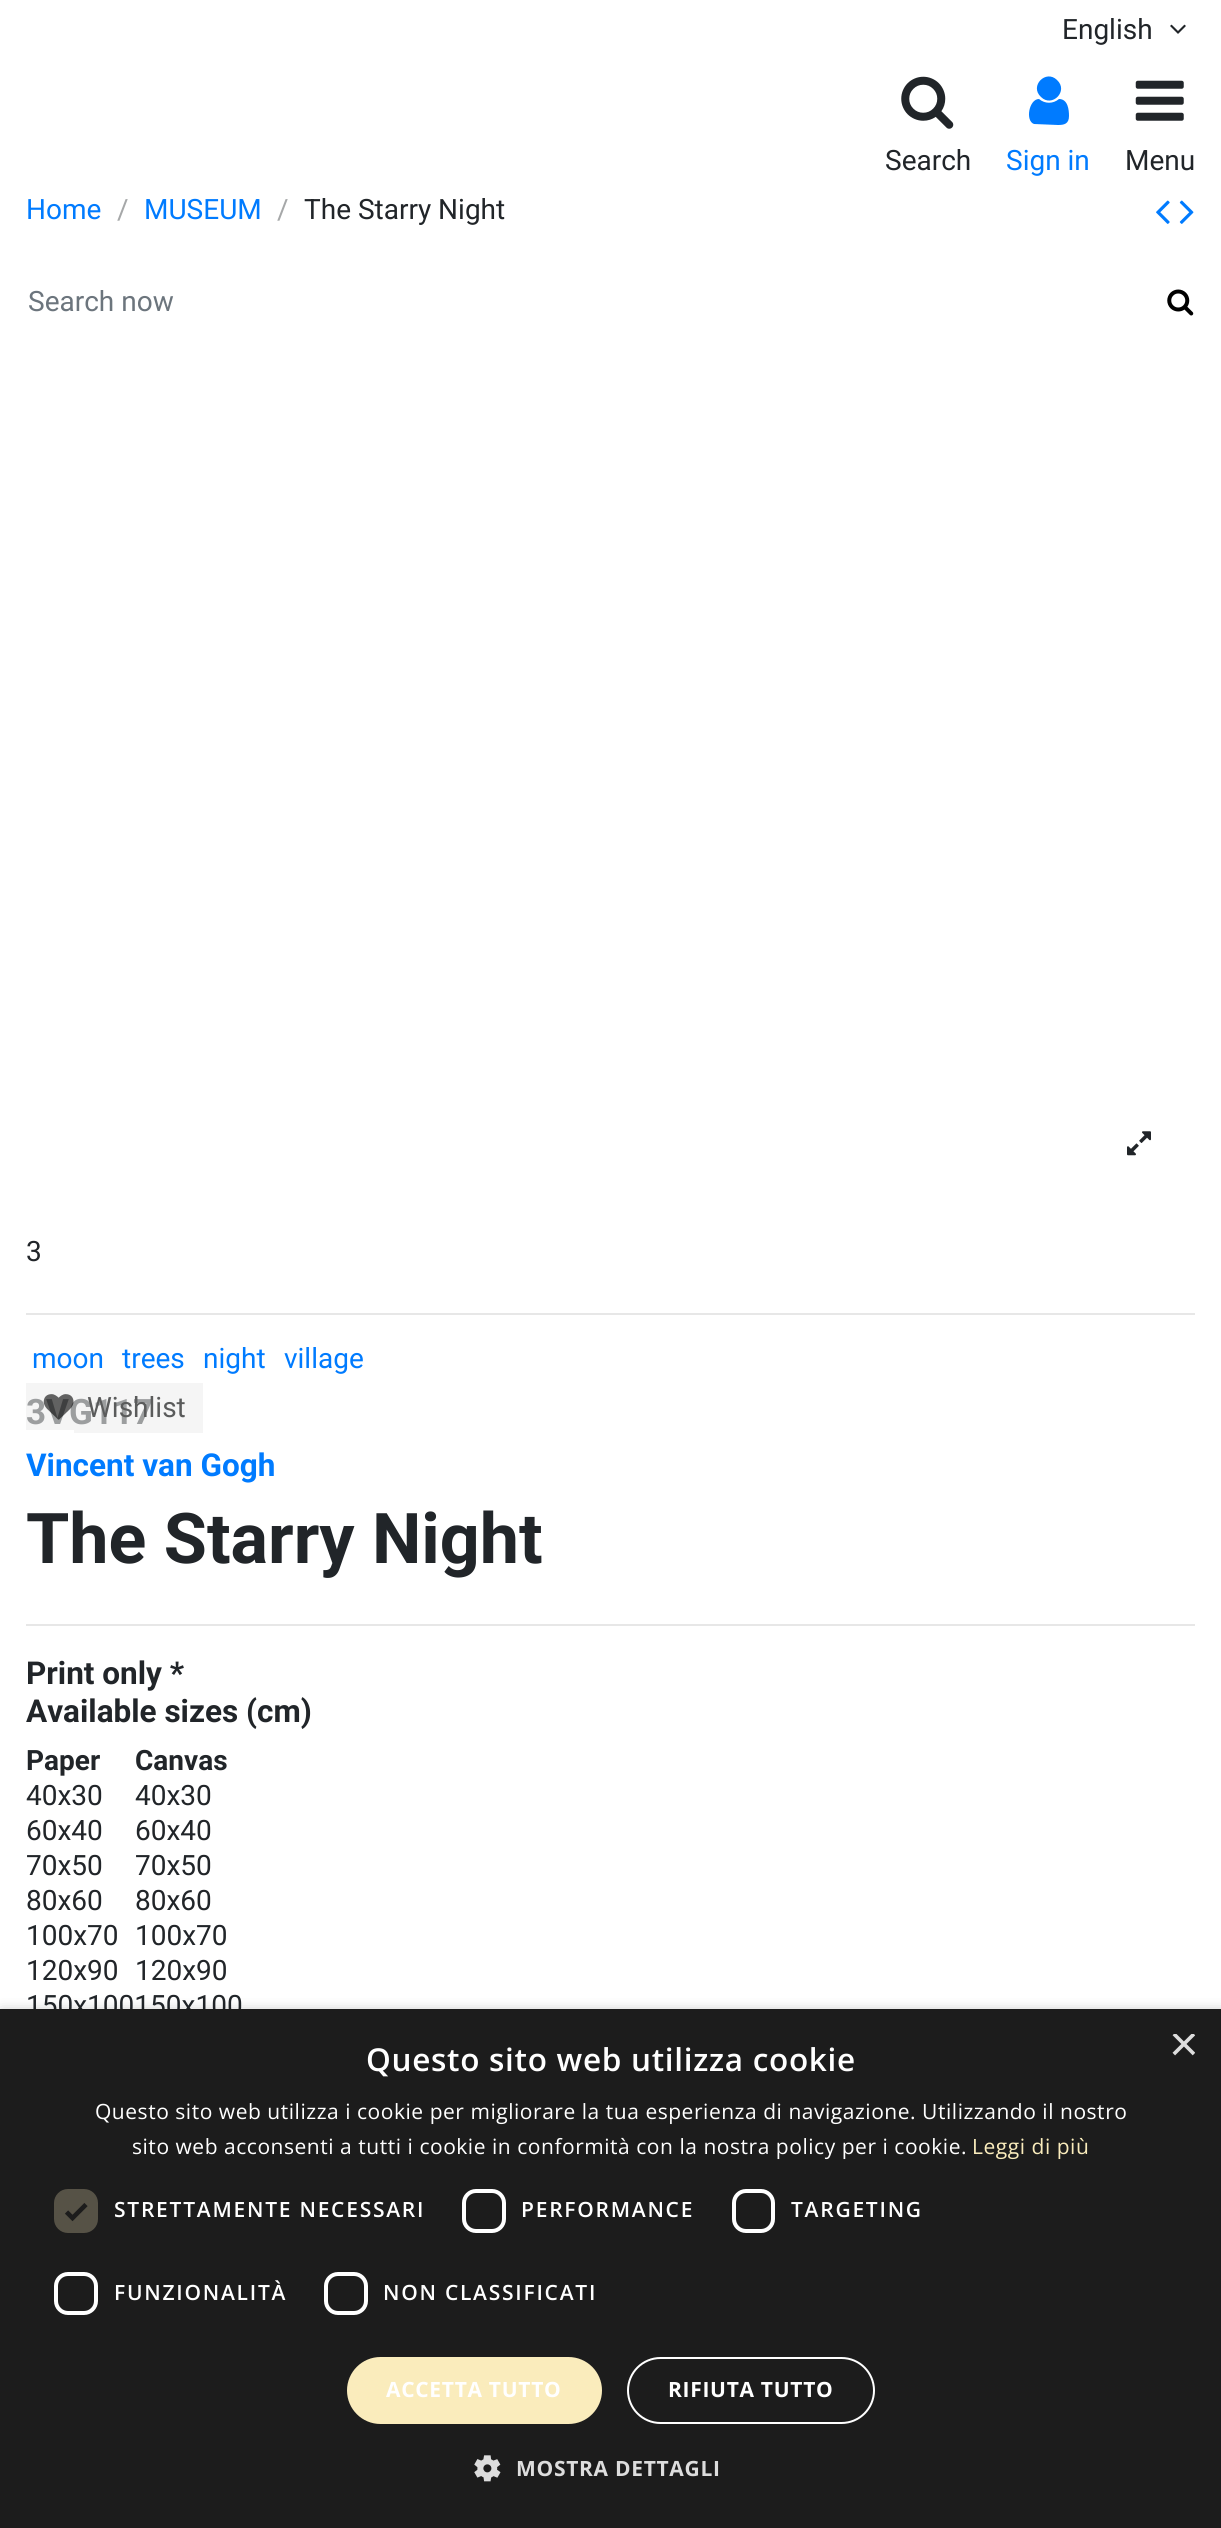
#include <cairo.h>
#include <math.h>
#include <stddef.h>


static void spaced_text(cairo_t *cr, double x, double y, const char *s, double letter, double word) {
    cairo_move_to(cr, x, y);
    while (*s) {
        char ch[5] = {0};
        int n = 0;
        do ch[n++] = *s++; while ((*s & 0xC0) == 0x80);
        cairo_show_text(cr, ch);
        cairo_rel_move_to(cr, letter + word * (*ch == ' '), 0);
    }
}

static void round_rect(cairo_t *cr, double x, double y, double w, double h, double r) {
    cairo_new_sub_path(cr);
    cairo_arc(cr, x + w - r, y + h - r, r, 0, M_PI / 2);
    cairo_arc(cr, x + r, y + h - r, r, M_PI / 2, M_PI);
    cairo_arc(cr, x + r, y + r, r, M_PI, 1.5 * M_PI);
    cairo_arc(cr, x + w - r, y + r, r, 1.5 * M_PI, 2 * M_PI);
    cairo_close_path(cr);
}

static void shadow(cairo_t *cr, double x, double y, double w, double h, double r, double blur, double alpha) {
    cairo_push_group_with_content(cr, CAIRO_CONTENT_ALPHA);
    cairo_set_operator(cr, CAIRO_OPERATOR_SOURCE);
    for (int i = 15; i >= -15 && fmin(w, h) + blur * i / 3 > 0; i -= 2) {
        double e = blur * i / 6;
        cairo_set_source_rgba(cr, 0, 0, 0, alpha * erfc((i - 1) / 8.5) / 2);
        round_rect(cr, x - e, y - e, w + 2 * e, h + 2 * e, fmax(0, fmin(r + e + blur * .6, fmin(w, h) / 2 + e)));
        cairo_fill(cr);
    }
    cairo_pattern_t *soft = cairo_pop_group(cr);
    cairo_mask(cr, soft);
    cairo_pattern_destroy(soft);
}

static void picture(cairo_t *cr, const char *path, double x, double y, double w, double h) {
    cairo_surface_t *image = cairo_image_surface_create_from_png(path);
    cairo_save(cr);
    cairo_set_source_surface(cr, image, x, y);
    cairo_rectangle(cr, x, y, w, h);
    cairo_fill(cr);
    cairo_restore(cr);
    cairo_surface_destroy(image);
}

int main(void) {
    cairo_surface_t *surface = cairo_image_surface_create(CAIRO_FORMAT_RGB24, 1221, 2528);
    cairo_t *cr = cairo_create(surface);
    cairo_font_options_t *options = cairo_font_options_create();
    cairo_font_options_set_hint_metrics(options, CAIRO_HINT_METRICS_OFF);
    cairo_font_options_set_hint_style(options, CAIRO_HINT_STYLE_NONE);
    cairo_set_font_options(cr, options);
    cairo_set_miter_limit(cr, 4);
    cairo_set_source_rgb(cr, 1, 1, 1);
    cairo_paint(cr);
    cairo_select_font_face(cr, "Roboto", CAIRO_FONT_SLANT_NORMAL, CAIRO_FONT_WEIGHT_NORMAL);
    cairo_set_font_size(cr, 28);
    cairo_set_source_rgb(cr, 0.129, 0.145, 0.161);
    cairo_move_to(cr, 1062, 39);
    cairo_show_text(cr, "English");
    picture(cr, "img1.png", 1170, 24, 16, 10);
    picture(cr, "img2.png", 901, 76, 53, 53);
    cairo_move_to(cr, 885, 170);
    cairo_show_text(cr, "Search");
    cairo_set_source_rgb(cr, 0, 0.482, 1);
    cairo_new_path(cr);
    cairo_move_to(cr, 1069, 116);
    cairo_curve_to(cr, 1069, 124, 1064, 125, 1058, 125);
    cairo_line_to(cr, 1034, 124);
    cairo_curve_to(cr, 1025, 121, 1029, 99, 1039, 99);
    cairo_curve_to(cr, 1045, 104, 1053, 104, 1059, 99);
    cairo_curve_to(cr, 1068, 99, 1069, 110, 1069, 116);
    cairo_close_path(cr);
    cairo_move_to(cr, 1057, 80);
    cairo_curve_to(cr, 1069, 91, 1052, 108, 1041, 97);
    cairo_curve_to(cr, 1029, 86, 1046, 69, 1057, 80);
    cairo_close_path(cr);
    cairo_fill(cr);
    cairo_move_to(cr, 1006, 170);
    cairo_show_text(cr, "Sign in");
    picture(cr, "img3.png", 1135, 80, 49, 41);
    cairo_set_source_rgb(cr, 0.129, 0.145, 0.161);
    cairo_move_to(cr, 1125, 170);
    cairo_show_text(cr, "Menu");
    cairo_set_source_rgb(cr, 0, 0.482, 1);
    cairo_move_to(cr, 26, 219);
    cairo_show_text(cr, "Home");
    cairo_set_source_rgb(cr, 0.651, 0.659, 0.663);
    cairo_move_to(cr, 117, 219);
    cairo_show_text(cr, "/");
    cairo_set_source_rgb(cr, 0, 0.482, 1);
    cairo_move_to(cr, 144, 219);
    cairo_show_text(cr, "MUSEUM");
    cairo_set_source_rgb(cr, 0.651, 0.659, 0.663);
    cairo_move_to(cr, 277, 219);
    cairo_show_text(cr, "/");
    cairo_set_source_rgb(cr, 0.129, 0.145, 0.161);
    cairo_move_to(cr, 304, 219);
    cairo_show_text(cr, "The Starry Night");
    picture(cr, "img4.png", 1156, 200, 14, 24);
    picture(cr, "img5.png", 1179, 200, 15, 24);
    cairo_set_source_rgb(cr, 0.424, 0.459, 0.49);
    cairo_move_to(cr, 28, 311);
    cairo_show_text(cr, "Search now");
    picture(cr, "img6.png", 1167, 289, 27, 27);
    picture(cr, "img7.png", 1127, 1131, 24, 25);
    cairo_set_source_rgb(cr, 0.129, 0.145, 0.161);
    cairo_move_to(cr, 26, 1261);
    cairo_show_text(cr, "3");
    cairo_set_source_rgb(cr, 0.906, 0.906, 0.906);
    cairo_rectangle(cr, 26, 1313, 1169, 2);
    cairo_fill(cr);
    cairo_set_source_rgb(cr, 0, 0.482, 1);
    cairo_move_to(cr, 32, 1368);
    cairo_show_text(cr, "moon");
    cairo_move_to(cr, 122, 1368);
    cairo_show_text(cr, "trees");
    cairo_move_to(cr, 203, 1368);
    cairo_show_text(cr, "night");
    cairo_move_to(cr, 284, 1368);
    cairo_show_text(cr, "village");
    cairo_select_font_face(cr, "Roboto", CAIRO_FONT_SLANT_NORMAL, CAIRO_FONT_WEIGHT_BOLD);
    cairo_set_font_size(cr, 35);
    cairo_set_source_rgb(cr, 0.129, 0.145, 0.161);
    cairo_move_to(cr, 26, 1424);
    cairo_show_text(cr, "3VG117");
    cairo_set_source_rgba(cr, 0.933, 0.933, 0.933, 0.6);
    cairo_rectangle(cr, 26, 1383, 48, 47);
    cairo_fill(cr);
    cairo_rectangle(cr, 74, 1383, 129, 50);
    cairo_fill(cr);
    picture(cr, "img8.png", 43, 1394, 31, 26);
    cairo_select_font_face(cr, "Roboto", CAIRO_FONT_SLANT_NORMAL, CAIRO_FONT_WEIGHT_NORMAL);
    cairo_set_font_size(cr, 28);
    cairo_set_source_rgb(cr, 0.353, 0.357, 0.357);
    cairo_move_to(cr, 87, 1417);
    cairo_show_text(cr, "Wishlist");
    cairo_select_font_face(cr, "Roboto", CAIRO_FONT_SLANT_NORMAL, CAIRO_FONT_WEIGHT_BOLD);
    cairo_set_font_size(cr, 31.5);
    cairo_set_source_rgb(cr, 0, 0.482, 1);
    cairo_move_to(cr, 26, 1476);
    cairo_show_text(cr, "Vincent van Gogh");
    cairo_set_source_rgb(cr, 0.906, 0.906, 0.906);
    cairo_rectangle(cr, 26, 1624, 1169, 2);
    cairo_fill(cr);
    cairo_set_font_size(cr, 70);
    cairo_set_source_rgb(cr, 0.129, 0.145, 0.161);
    cairo_move_to(cr, 26, 1563);
    cairo_show_text(cr, "The Starry Night");
    cairo_set_font_size(cr, 31.5);
    cairo_move_to(cr, 26, 1684);
    cairo_show_text(cr, "Print only *");
    cairo_move_to(cr, 26, 1722);
    cairo_show_text(cr, "Available sizes (cm)");
    cairo_set_font_size(cr, 28);
    cairo_move_to(cr, 26, 1770);
    cairo_show_text(cr, "Paper");
    cairo_move_to(cr, 135, 1770);
    cairo_show_text(cr, "Canvas");
    cairo_select_font_face(cr, "Roboto", CAIRO_FONT_SLANT_NORMAL, CAIRO_FONT_WEIGHT_NORMAL);
    cairo_move_to(cr, 26, 1805);
    cairo_show_text(cr, "40x30");
    cairo_move_to(cr, 135, 1805);
    cairo_show_text(cr, "40x30");
    cairo_move_to(cr, 26, 1840);
    cairo_show_text(cr, "60x40");
    cairo_move_to(cr, 135, 1840);
    cairo_show_text(cr, "60x40");
    cairo_move_to(cr, 26, 1875);
    cairo_show_text(cr, "70x50");
    cairo_move_to(cr, 135, 1875);
    cairo_show_text(cr, "70x50");
    cairo_move_to(cr, 26, 1910);
    cairo_show_text(cr, "80x60");
    cairo_move_to(cr, 135, 1910);
    cairo_show_text(cr, "80x60");
    cairo_move_to(cr, 26, 1945);
    cairo_show_text(cr, "100x70");
    cairo_move_to(cr, 135, 1945);
    cairo_show_text(cr, "100x70");
    cairo_move_to(cr, 26, 1980);
    cairo_show_text(cr, "120x90");
    cairo_move_to(cr, 135, 1980);
    cairo_show_text(cr, "120x90");
    cairo_move_to(cr, 26, 2015);
    cairo_show_text(cr, "150x100150x100");
    cairo_set_source_rgb(cr, 0, 0, 0);
    shadow(cr, 2, 2013, 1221, 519, 0, 7, 0.35);
    cairo_set_source_rgb(cr, 0.11, 0.11, 0.11);
    cairo_rectangle(cr, 0, 2009, 1221, 519);
    cairo_fill(cr);
    cairo_select_font_face(cr, "Open Sans SemiBold", CAIRO_FONT_SLANT_NORMAL, CAIRO_FONT_WEIGHT_NORMAL);
    cairo_set_font_size(cr, 31.5);
    cairo_set_source_rgb(cr, 1, 1, 1);
    spaced_text(cr, 366, 2071, "Questo sito web utilizza cookie", 0.7, 0);
    cairo_save(cr);
    cairo_rectangle(cr, 1169, 2034, 26, 26);
    cairo_clip(cr);
    cairo_select_font_face(cr, "Liberation Sans", CAIRO_FONT_SLANT_NORMAL, CAIRO_FONT_WEIGHT_NORMAL);
    cairo_set_font_size(cr, 51);
    cairo_set_source_rgb(cr, 0.867, 0.867, 0.867);
    cairo_move_to(cr, 1169, 2061);
    cairo_show_text(cr, "×");
    cairo_restore(cr);
    cairo_select_font_face(cr, "Open Sans", CAIRO_FONT_SLANT_NORMAL, CAIRO_FONT_WEIGHT_NORMAL);
    cairo_set_font_size(cr, 21);
    spaced_text(cr, 95, 2119, "Questo sito web utilizza i cookie per migliorare la tua esperienza di navigazione. Utilizzando il nostro", 0.53, 0);
    spaced_text(cr, 132, 2154, "sito web acconsenti a tutti i cookie in conformità con la nostra policy per i cookie.", 0.53, 0);
    cairo_set_source_rgb(cr, 0.98, 0.922, 0.737);
    spaced_text(cr, 972, 2154, "Leggi di più", 0.53, 0);
    cairo_set_source_rgb(cr, 0.337, 0.322, 0.275);
    round_rect(cr, 54, 2189, 44, 44, 14);
    cairo_fill(cr);
    cairo_new_path(cr);
    cairo_move_to(cr, 66.5, 2212);
    cairo_line_to(cr, 72.5, 2218);
    cairo_line_to(cr, 86, 2204.5);
    cairo_set_source_rgb(cr, 0.11, 0.11, 0.11);
    cairo_set_line_width(cr, 4.6);
    cairo_stroke(cr);
    cairo_select_font_face(cr, "Open Sans SemiBold", CAIRO_FONT_SLANT_NORMAL, CAIRO_FONT_WEIGHT_NORMAL);
    cairo_set_source_rgb(cr, 1, 1, 1);
    spaced_text(cr, 114, 2217, "STRETTAMENTE NECESSARI", 1.75, 0);
    round_rect(cr, 464, 2191, 40, 40, 12);
    cairo_set_line_width(cr, 4);
    cairo_stroke(cr);
    spaced_text(cr, 521, 2217, "PERFORMANCE", 1.75, 0);
    round_rect(cr, 734, 2191, 39, 40, 12);
    cairo_stroke(cr);
    spaced_text(cr, 791, 2217, "TARGETING", 1.75, 0);
    round_rect(cr, 56, 2274, 40, 39, 12);
    cairo_stroke(cr);
    spaced_text(cr, 114, 2300, "FUNZIONALITÀ", 1.75, 0);
    round_rect(cr, 326, 2274, 40, 39, 12);
    cairo_stroke(cr);
    spaced_text(cr, 383, 2300, "NON CLASSIFICATI", 1.75, 0);
    cairo_set_source_rgb(cr, 0.98, 0.922, 0.737);
    round_rect(cr, 347, 2357, 255, 67, 33.5);
    cairo_fill(cr);
    cairo_select_font_face(cr, "Open Sans", CAIRO_FONT_SLANT_NORMAL, CAIRO_FONT_WEIGHT_BOLD);
    cairo_set_source_rgb(cr, 1, 1, 1);
    spaced_text(cr, 386, 2397, "ACCETTA TUTTO", 0.7, 0);
    round_rect(cr, 628, 2358, 246, 65, 32.5);
    cairo_set_line_width(cr, 2);
    cairo_stroke(cr);
    spaced_text(cr, 668, 2397, "RIFIUTA TUTTO", 0.7, 0);
    picture(cr, "img9.png", 474, 2455, 27, 27);
    cairo_set_source_rgb(cr, 0.867, 0.867, 0.867);
    spaced_text(cr, 516, 2476, "MOSTRA DETTAGLI", 0.7, 0);
    cairo_surface_write_to_png(surface, "page.png");
    cairo_font_options_destroy(options);
    cairo_destroy(cr);
    cairo_surface_destroy(surface);
    return 0;
}
